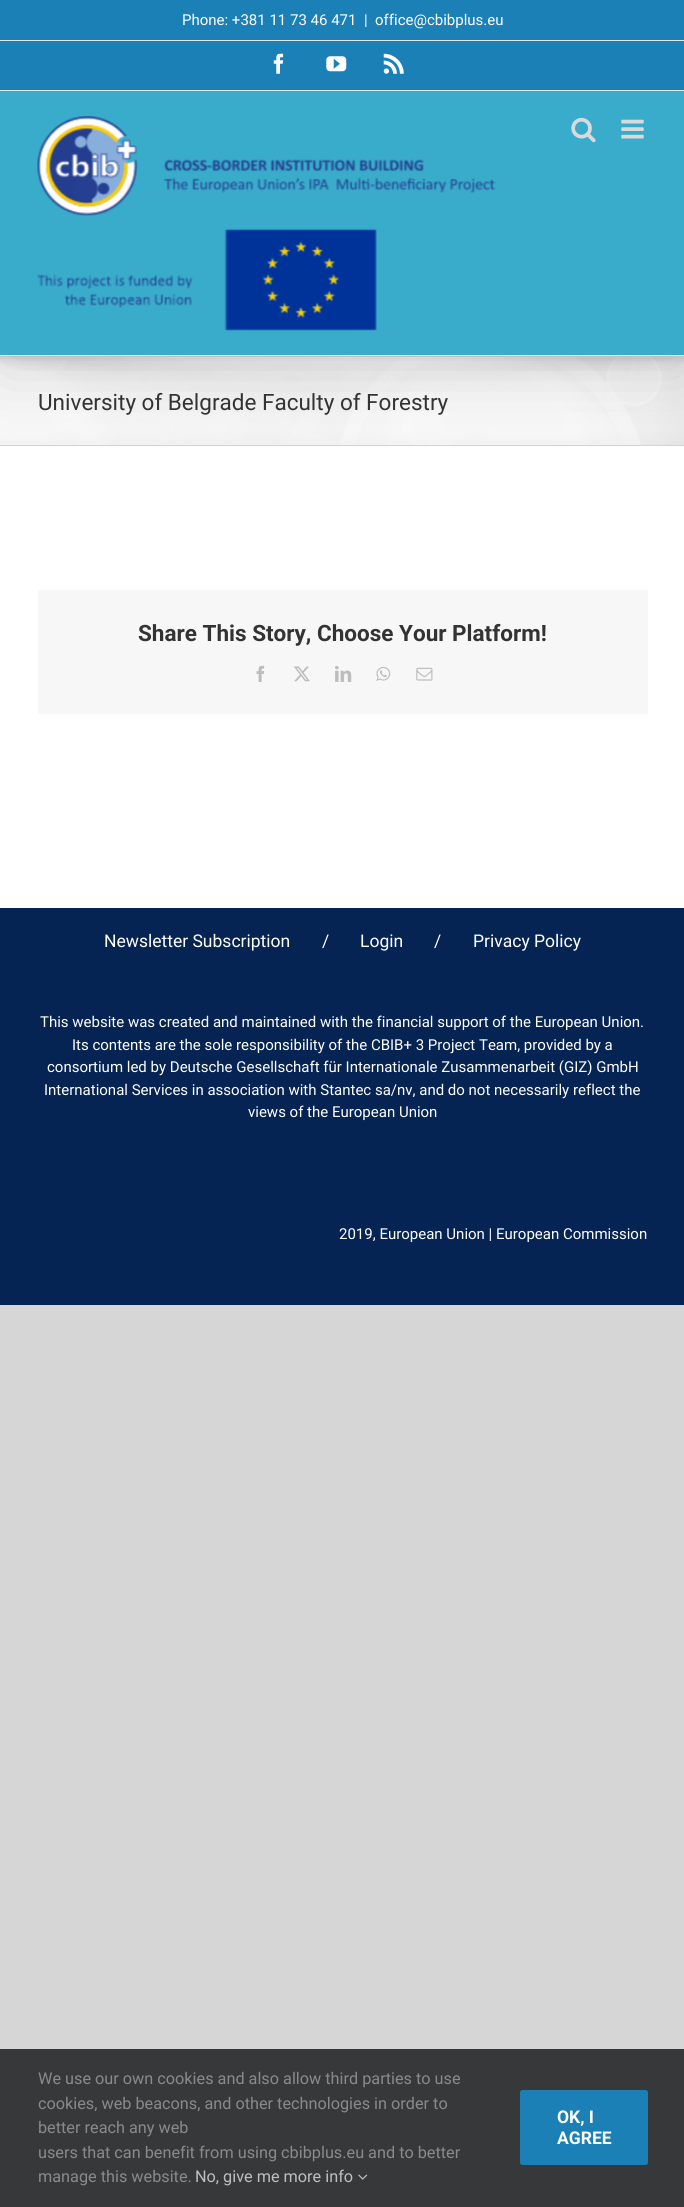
#include <cairo.h>
#include <math.h>
#include <stddef.h>


static void round_rect(cairo_t *cr, double x, double y, double w, double h, double r) {
    cairo_new_sub_path(cr);
    cairo_arc(cr, x + w - r, y + h - r, r, 0, M_PI / 2);
    cairo_arc(cr, x + r, y + h - r, r, M_PI / 2, M_PI);
    cairo_arc(cr, x + r, y + r, r, M_PI, 1.5 * M_PI);
    cairo_arc(cr, x + w - r, y + r, r, 1.5 * M_PI, 2 * M_PI);
    cairo_close_path(cr);
}

static void shadow(cairo_t *cr, double x, double y, double w, double h, double r, double blur, double alpha) {
    cairo_push_group_with_content(cr, CAIRO_CONTENT_ALPHA);
    cairo_set_operator(cr, CAIRO_OPERATOR_SOURCE);
    for (int i = 15; i >= -15 && fmin(w, h) + blur * i / 3 > 0; i -= 2) {
        double e = blur * i / 6;
        cairo_set_source_rgba(cr, 0, 0, 0, alpha * erfc((i - 1) / 8.5) / 2);
        round_rect(cr, x - e, y - e, w + 2 * e, h + 2 * e, fmax(0, fmin(r + e + blur * .6, fmin(w, h) / 2 + e)));
        cairo_fill(cr);
    }
    cairo_pattern_t *soft = cairo_pop_group(cr);
    cairo_mask(cr, soft);
    cairo_pattern_destroy(soft);
}

static void picture(cairo_t *cr, const char *path, double x, double y, double w, double h) {
    cairo_surface_t *image = cairo_image_surface_create_from_png(path);
    cairo_save(cr);
    cairo_set_source_surface(cr, image, x, y);
    cairo_rectangle(cr, x, y, w, h);
    cairo_fill(cr);
    cairo_restore(cr);
    cairo_surface_destroy(image);
}

int main(void) {
    cairo_surface_t *surface = cairo_image_surface_create(CAIRO_FORMAT_RGB24, 684, 2207);
    cairo_t *cr = cairo_create(surface);
    cairo_font_options_t *options = cairo_font_options_create();
    cairo_font_options_set_hint_metrics(options, CAIRO_HINT_METRICS_OFF);
    cairo_font_options_set_hint_style(options, CAIRO_HINT_STYLE_NONE);
    cairo_set_font_options(cr, options);
    cairo_set_miter_limit(cr, 4);
    cairo_set_source_rgb(cr, 0.843, 0.839, 0.839);
    cairo_paint(cr);
    cairo_set_source_rgb(cr, 0.965, 0.965, 0.965);
    cairo_rectangle(cr, 0, 357, 684, 88);
    cairo_fill(cr);
    picture(cr, "img8.png", 0, 357, 684, 88);
    cairo_set_source_rgb(cr, 0.824, 0.827, 0.831);
    cairo_rectangle(cr, 0, 356, 684, 1);
    cairo_fill(cr);
    cairo_rectangle(cr, 0, 445, 684, 1);
    cairo_fill(cr);
    cairo_set_source_rgb(cr, 1, 1, 1);
    cairo_rectangle(cr, 0, 446, 684, 462);
    cairo_fill(cr);
    cairo_set_source_rgb(cr, 0, 0, 0);
    shadow(cr, 3, 15, 680, 351, 0, 31, 0.14);
    cairo_set_source_rgb(cr, 0.106, 0.502, 0.714);
    cairo_rectangle(cr, 0, 0, 684, 90);
    cairo_fill(cr);
    cairo_set_source_rgb(cr, 0.898, 0.898, 0.898);
    cairo_rectangle(cr, 0, 90, 684, 1);
    cairo_fill(cr);
    cairo_rectangle(cr, 0, 40, 684, 1);
    cairo_fill(cr);
    cairo_select_font_face(cr, "Roboto", CAIRO_FONT_SLANT_NORMAL, CAIRO_FONT_WEIGHT_NORMAL);
    cairo_set_font_size(cr, 15);
    cairo_set_source_rgb(cr, 1, 1, 1);
    cairo_move_to(cr, 182, 25);
    cairo_show_text(cr, "Phone: +381 11 73 46 471");
    cairo_move_to(cr, 364, 25);
    cairo_show_text(cr, "|");
    cairo_move_to(cr, 375, 25);
    cairo_show_text(cr, "office@cbibplus.eu");
    picture(cr, "img1.png", 273, 53, 11, 21);
    picture(cr, "img2.png", 326, 56, 21, 16);
    picture(cr, "img3.png", 383, 53, 21, 21);
    cairo_set_source_rgb(cr, 0.227, 0.675, 0.796);
    cairo_rectangle(cr, 0, 91, 684, 264);
    cairo_fill(cr);
    cairo_set_source_rgb(cr, 0.898, 0.898, 0.898);
    cairo_rectangle(cr, 0, 355, 684, 1);
    cairo_fill(cr);
    picture(cr, "img4.png", 37, 116, 459, 100);
    picture(cr, "img5.png", 37, 228, 340, 103);
    picture(cr, "img6.png", 571, 117, 25, 26);
    picture(cr, "img7.png", 621, 119, 23, 20);
    cairo_set_font_size(cr, 22.5);
    cairo_set_source_rgb(cr, 0.2, 0.2, 0.2);
    cairo_move_to(cr, 38, 410);
    cairo_show_text(cr, "University of Belgrade Faculty of Forestry");
    cairo_set_source_rgb(cr, 0.965, 0.965, 0.965);
    cairo_rectangle(cr, 38, 590, 610, 124);
    cairo_fill(cr);
    cairo_select_font_face(cr, "Roboto", CAIRO_FONT_SLANT_NORMAL, CAIRO_FONT_WEIGHT_BOLD);
    cairo_set_source_rgb(cr, 0.2, 0.2, 0.2);
    cairo_move_to(cr, 138, 641);
    cairo_show_text(cr, "Share This Story, Choose Your Platform!");
    picture(cr, "img9.png", 256, 665, 9, 17);
    picture(cr, "img10.png", 294, 666, 16, 16);
    picture(cr, "img11.png", 335, 666, 17, 16);
    picture(cr, "img12.png", 376, 666, 15, 15);
    picture(cr, "img13.png", 416, 667, 17, 14);
    cairo_set_source_rgb(cr, 0.02, 0.141, 0.325);
    cairo_rectangle(cr, 0, 908, 684, 397);
    cairo_fill(cr);
    cairo_select_font_face(cr, "Roboto", CAIRO_FONT_SLANT_NORMAL, CAIRO_FONT_WEIGHT_NORMAL);
    cairo_set_font_size(cr, 17.5);
    cairo_set_source_rgb(cr, 1, 1, 1);
    cairo_move_to(cr, 104, 947);
    cairo_show_text(cr, "Newsletter Subscription");
    cairo_move_to(cr, 322, 947);
    cairo_show_text(cr, "/");
    cairo_move_to(cr, 360, 947);
    cairo_show_text(cr, "Login");
    cairo_move_to(cr, 434, 947);
    cairo_show_text(cr, "/");
    cairo_move_to(cr, 473, 947);
    cairo_show_text(cr, "Privacy Policy");
    cairo_set_font_size(cr, 15);
    cairo_move_to(cr, 40, 1027);
    cairo_show_text(cr, "This website was created and maintained with the financial support of the European Union.");
    cairo_move_to(cr, 72, 1050);
    cairo_show_text(cr, "Its contents are the sole responsibility of the CBIB+ 3 Project Team, provided by a");
    cairo_move_to(cr, 47, 1072);
    cairo_show_text(cr, "consortium led by Deutsche Gesellschaft für Internationale Zusammenarbeit (GIZ) GmbH");
    cairo_move_to(cr, 44, 1095);
    cairo_show_text(cr, "International Services in association with Stantec sa/nv, and do not necessarily reflect the");
    cairo_move_to(cr, 248, 1117);
    cairo_show_text(cr, "views of the European Union");
    cairo_move_to(cr, 339, 1239);
    cairo_show_text(cr, "2019, European Union | European Commission");
    cairo_set_source_rgb(cr, 0.212, 0.22, 0.224);
    cairo_rectangle(cr, 0, 2049, 684, 158);
    cairo_fill(cr);
    cairo_set_font_size(cr, 16.25);
    cairo_set_source_rgb(cr, 0.549, 0.537, 0.537);
    cairo_move_to(cr, 38, 2084);
    cairo_show_text(cr, "We use our own cookies and also allow third parties to use");
    cairo_move_to(cr, 38, 2109);
    cairo_show_text(cr, "cookies, web beacons, and other technologies in order to");
    cairo_move_to(cr, 38, 2133);
    cairo_show_text(cr, "better reach any web");
    cairo_move_to(cr, 38, 2158);
    cairo_show_text(cr, "users that can benefit from using cbibplus.eu and to better");
    cairo_move_to(cr, 38, 2182);
    cairo_show_text(cr, "manage this website.");
    cairo_set_source_rgb(cr, 0.749, 0.749, 0.749);
    cairo_move_to(cr, 195, 2182);
    cairo_show_text(cr, "No, give me more info");
    picture(cr, "img14.png", 358, 2174, 10, 6);
    cairo_set_source_rgb(cr, 0.102, 0.502, 0.714);
    round_rect(cr, 520, 2090, 128, 75, 2.5);
    cairo_fill(cr);
    cairo_select_font_face(cr, "Roboto", CAIRO_FONT_SLANT_NORMAL, CAIRO_FONT_WEIGHT_BOLD);
    cairo_set_font_size(cr, 17.5);
    cairo_set_source_rgb(cr, 1, 1, 1);
    cairo_move_to(cr, 557, 2123);
    cairo_show_text(cr, "OK, I");
    cairo_move_to(cr, 557, 2144);
    cairo_show_text(cr, "AGREE");
    cairo_surface_write_to_png(surface, "page.png");
    cairo_font_options_destroy(options);
    cairo_destroy(cr);
    cairo_surface_destroy(surface);
    return 0;
}
